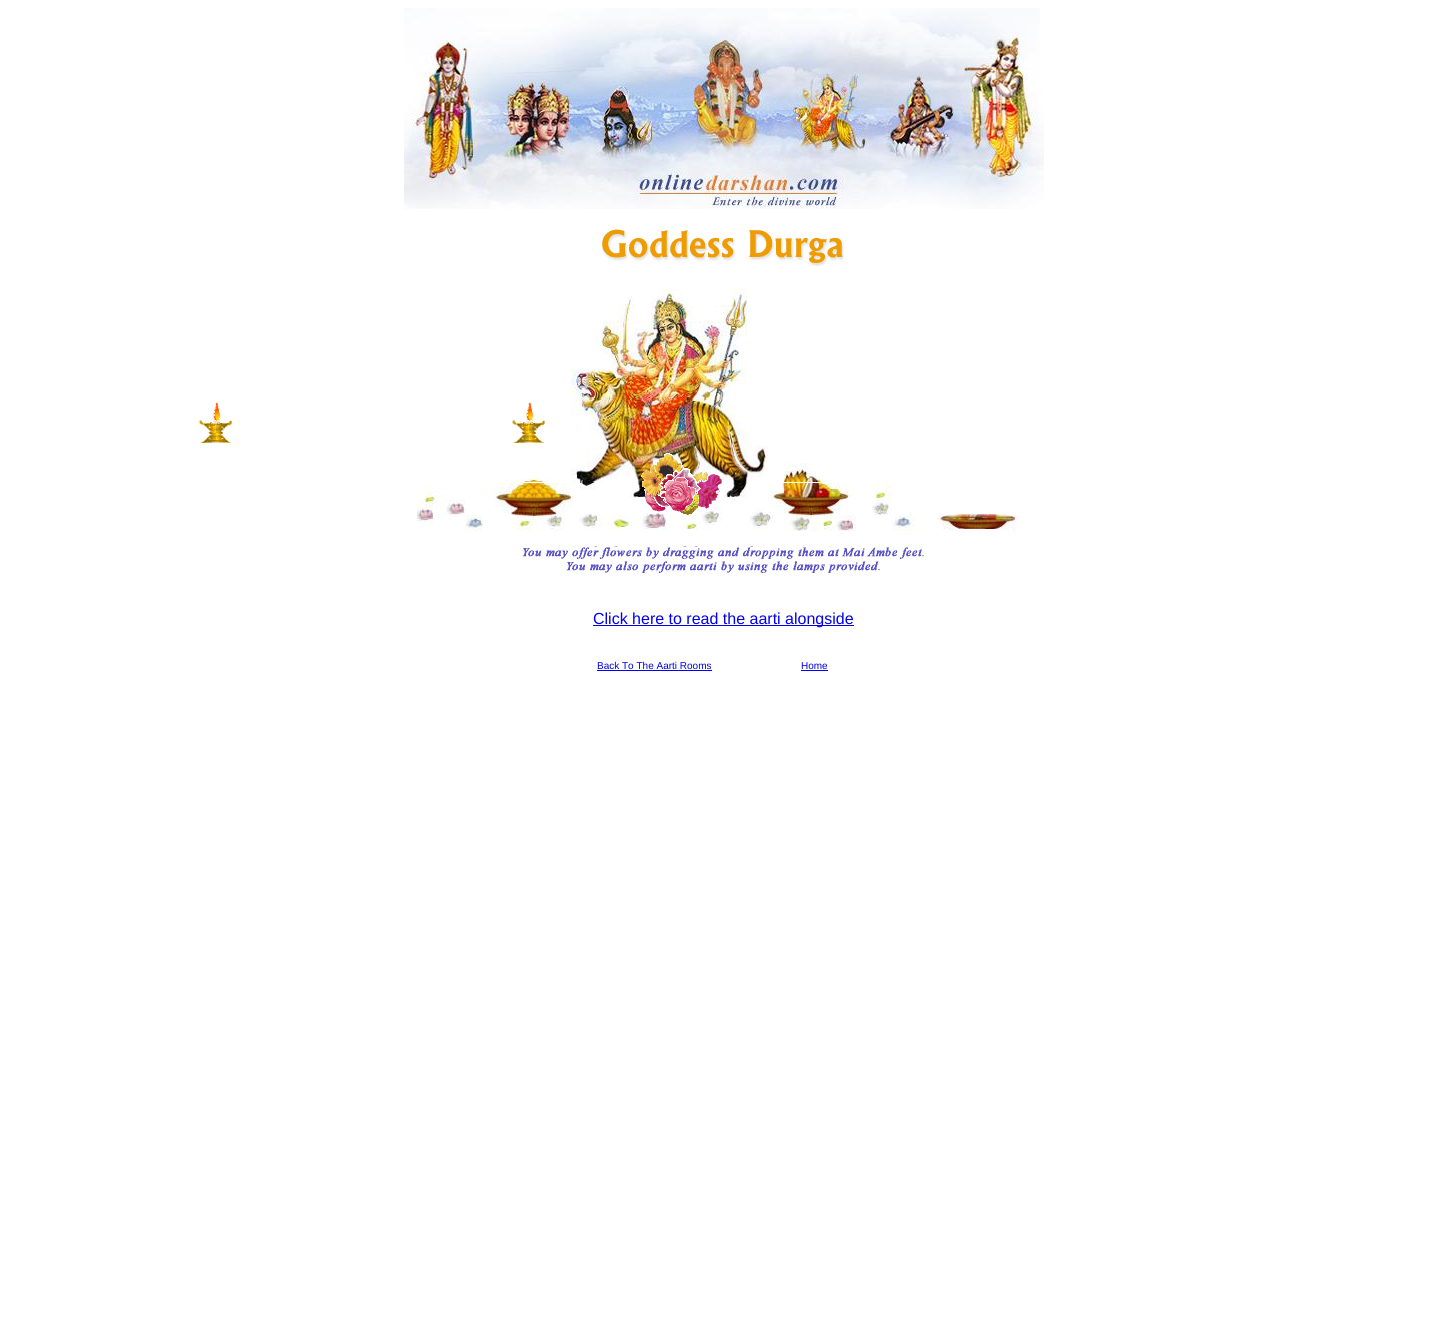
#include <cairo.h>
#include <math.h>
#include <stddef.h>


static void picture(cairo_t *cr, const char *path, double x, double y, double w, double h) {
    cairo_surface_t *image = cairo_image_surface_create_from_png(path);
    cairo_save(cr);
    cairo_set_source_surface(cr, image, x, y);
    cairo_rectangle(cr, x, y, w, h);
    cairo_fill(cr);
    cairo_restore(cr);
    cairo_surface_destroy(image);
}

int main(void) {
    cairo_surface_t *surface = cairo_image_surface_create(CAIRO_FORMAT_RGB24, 1447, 1319);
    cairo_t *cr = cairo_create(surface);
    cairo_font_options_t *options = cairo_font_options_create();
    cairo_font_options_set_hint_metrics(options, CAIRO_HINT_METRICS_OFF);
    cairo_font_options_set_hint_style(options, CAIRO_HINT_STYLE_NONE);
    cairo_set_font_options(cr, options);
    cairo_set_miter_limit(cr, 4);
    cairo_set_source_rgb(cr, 1, 1, 1);
    cairo_paint(cr);
    picture(cr, "img1.png", 404, 8, 640, 201);
    picture(cr, "img2.png", 602, 229, 242, 37);
    picture(cr, "img3.png", 199, 402, 34, 41);
    picture(cr, "img4.png", 571, 289, 176, 110);
    picture(cr, "img5.png", 517, 478, 32, 4);
    picture(cr, "img6.png", 571, 399, 197, 83);
    picture(cr, "img7.png", 783, 463, 49, 19);
    picture(cr, "img8.png", 417, 483, 66, 48);
    picture(cr, "img9.png", 485, 483, 86, 48);
    picture(cr, "img10.png", 579, 482, 189, 65);
    picture(cr, "img11.png", 768, 483, 90, 48);
    picture(cr, "img12.png", 872, 483, 45, 48);
    picture(cr, "img13.png", 937, 513, 82, 19);
    picture(cr, "img3.png", 512, 402, 34, 41);
    picture(cr, "img20.png", 645, 490, 21, 22);
    picture(cr, "img22.png", 654, 495, 16, 13);
    picture(cr, "img14.png", 641, 453, 43, 44);
    picture(cr, "img18.png", 690, 473, 1, 1);
    picture(cr, "img17.png", 690, 471, 31, 37);
    picture(cr, "img19.png", 697, 473, 25, 36);
    picture(cr, "img16.png", 659, 470, 39, 33);
    picture(cr, "img15.png", 672, 468, 29, 24);
    picture(cr, "img23.png", 680, 493, 19, 22);
    picture(cr, "img21.png", 664, 477, 32, 35);
    picture(cr, "img24.png", 522, 547, 402, 26);
    cairo_set_source_rgb(cr, 0, 0, 0.933);
    cairo_rectangle(cr, 593, 625, 261, 1);
    cairo_fill(cr);
    cairo_select_font_face(cr, "Liberation Sans", CAIRO_FONT_SLANT_NORMAL, CAIRO_FONT_WEIGHT_NORMAL);
    cairo_set_font_size(cr, 16);
    cairo_move_to(cr, 593, 624);
    cairo_show_text(cr, "Click here to read the aarti alongside");
    cairo_set_font_size(cr, 10);
    cairo_move_to(cr, 597, 669);
    cairo_show_text(cr, "Back To The Aarti Rooms");
    cairo_rectangle(cr, 597, 670, 115, 1);
    cairo_fill(cr);
    cairo_move_to(cr, 801, 669);
    cairo_show_text(cr, "Home");
    cairo_rectangle(cr, 801, 670, 27, 1);
    cairo_fill(cr);
    cairo_surface_write_to_png(surface, "page.png");
    cairo_font_options_destroy(options);
    cairo_destroy(cr);
    cairo_surface_destroy(surface);
    return 0;
}
